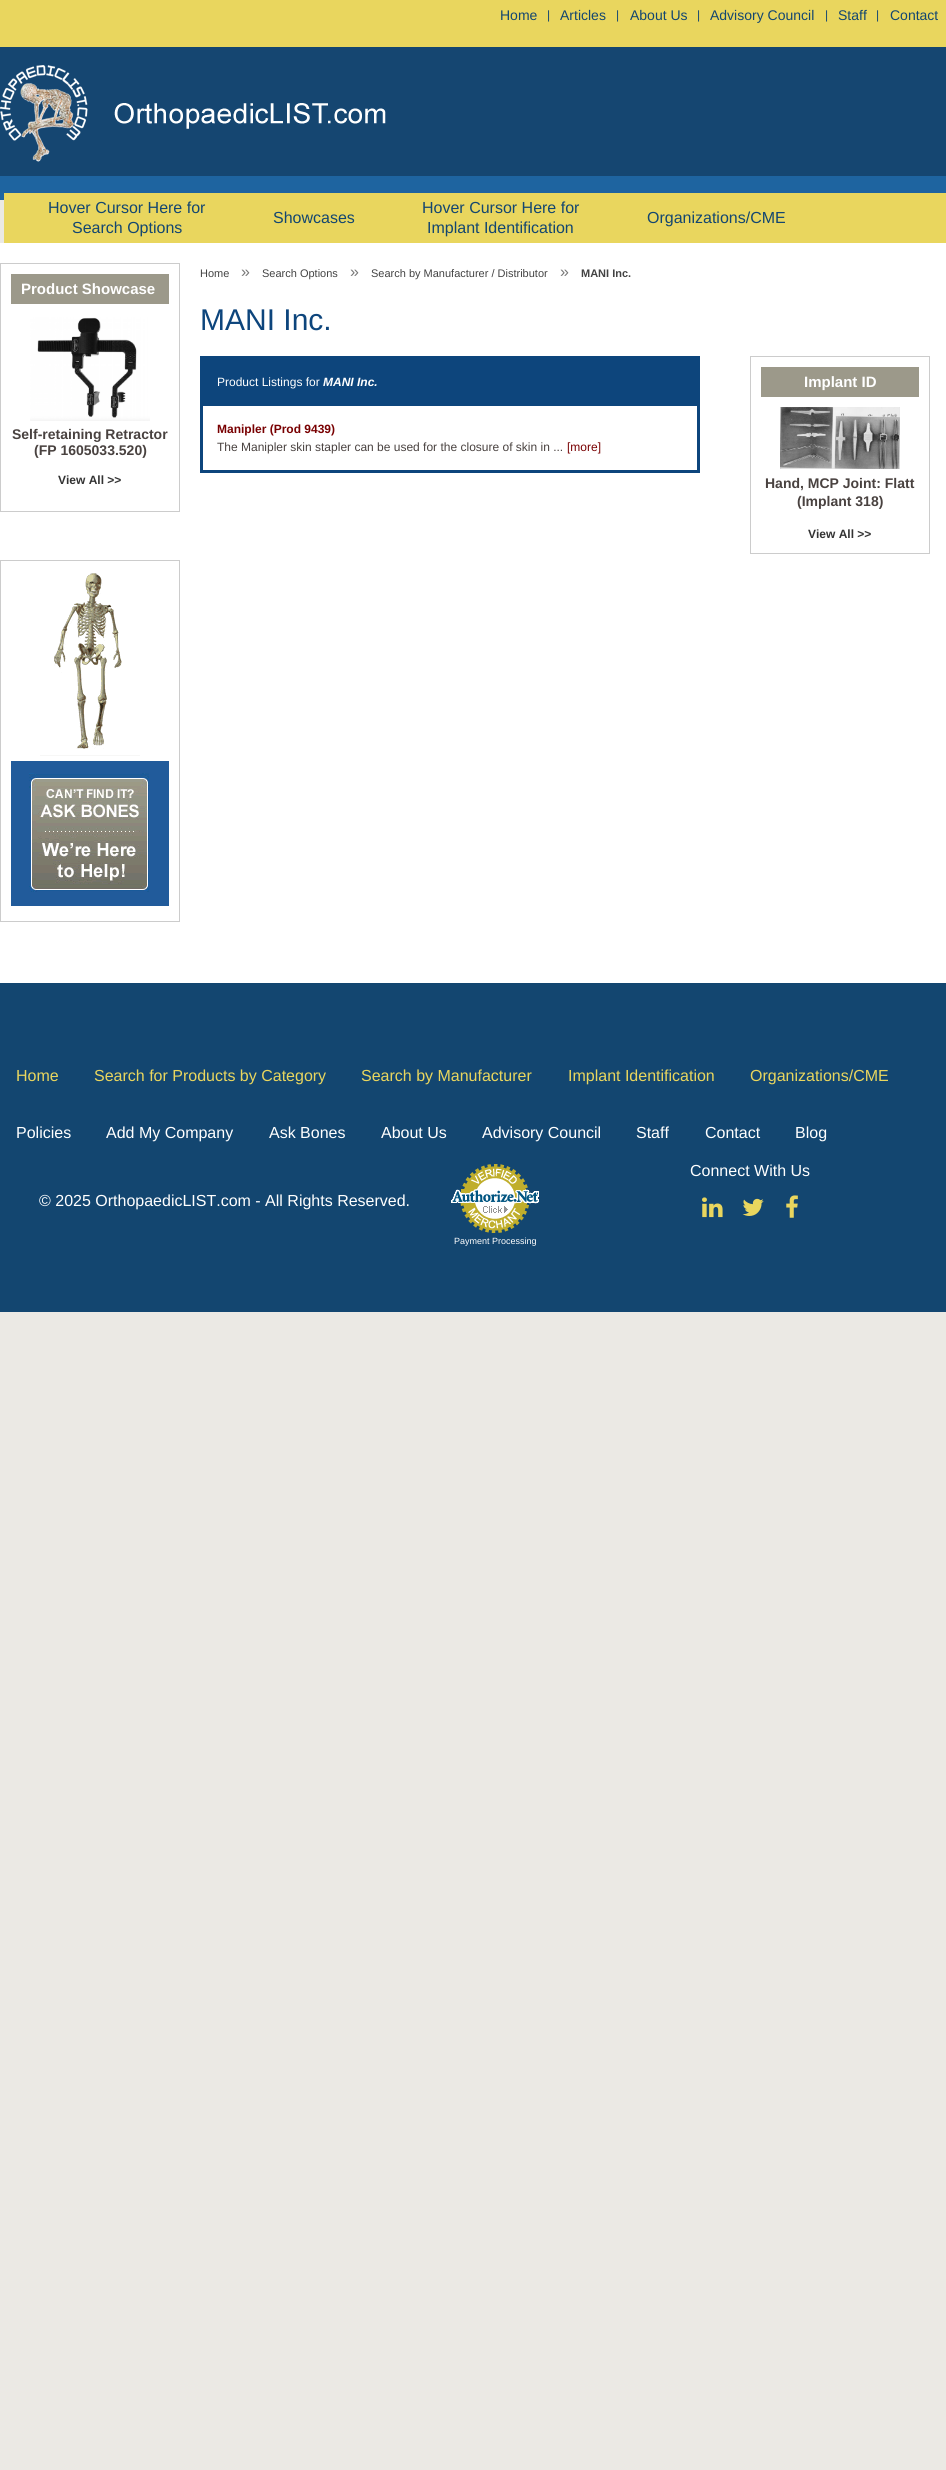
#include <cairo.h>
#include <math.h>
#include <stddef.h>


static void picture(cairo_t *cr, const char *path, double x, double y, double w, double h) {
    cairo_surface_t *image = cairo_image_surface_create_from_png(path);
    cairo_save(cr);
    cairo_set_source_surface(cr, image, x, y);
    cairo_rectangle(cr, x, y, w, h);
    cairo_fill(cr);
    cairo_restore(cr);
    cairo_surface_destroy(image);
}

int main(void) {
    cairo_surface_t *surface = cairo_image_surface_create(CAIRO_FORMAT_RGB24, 946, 2470);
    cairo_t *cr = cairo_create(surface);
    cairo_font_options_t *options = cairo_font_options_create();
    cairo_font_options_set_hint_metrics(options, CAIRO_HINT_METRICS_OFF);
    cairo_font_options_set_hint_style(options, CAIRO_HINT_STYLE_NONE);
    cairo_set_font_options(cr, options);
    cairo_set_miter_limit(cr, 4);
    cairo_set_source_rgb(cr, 0.918, 0.914, 0.894);
    cairo_paint(cr);
    picture(cr, "img1.png", 0, 0, 946, 200);
    cairo_select_font_face(cr, "Liberation Sans", CAIRO_FONT_SLANT_NORMAL, CAIRO_FONT_WEIGHT_NORMAL);
    cairo_set_font_size(cr, 14);
    cairo_set_source_rgb(cr, 0.078, 0.275, 0.439);
    cairo_move_to(cr, 500, 20);
    cairo_show_text(cr, "Home");
    cairo_set_font_size(cr, 12);
    cairo_move_to(cr, 547, 19);
    cairo_show_text(cr, "|");
    cairo_set_font_size(cr, 14);
    cairo_move_to(cr, 560, 20);
    cairo_show_text(cr, "Articles");
    cairo_set_font_size(cr, 12);
    cairo_move_to(cr, 616, 19);
    cairo_show_text(cr, "|");
    cairo_set_font_size(cr, 14);
    cairo_move_to(cr, 630, 20);
    cairo_show_text(cr, "About Us");
    cairo_set_font_size(cr, 12);
    cairo_move_to(cr, 697, 19);
    cairo_show_text(cr, "|");
    cairo_set_font_size(cr, 14);
    cairo_move_to(cr, 710, 20);
    cairo_show_text(cr, "Advisory Council");
    cairo_set_font_size(cr, 12);
    cairo_move_to(cr, 825, 19);
    cairo_show_text(cr, "|");
    cairo_set_font_size(cr, 14);
    cairo_move_to(cr, 838, 20);
    cairo_show_text(cr, "Staff");
    cairo_set_font_size(cr, 12);
    cairo_move_to(cr, 876, 19);
    cairo_show_text(cr, "|");
    cairo_set_font_size(cr, 14);
    cairo_move_to(cr, 890, 20);
    cairo_show_text(cr, "Contact");
    picture(cr, "img2.png", 0, 65, 386, 97);
    cairo_set_source_rgb(cr, 0.914, 0.839, 0.369);
    cairo_rectangle(cr, 4, 193, 942, 50);
    cairo_fill(cr);
    cairo_set_font_size(cr, 16);
    cairo_set_source_rgb(cr, 0.078, 0.275, 0.439);
    cairo_move_to(cr, 48, 213);
    cairo_show_text(cr, "Hover Cursor Here for");
    cairo_move_to(cr, 72, 233);
    cairo_show_text(cr, "Search Options");
    cairo_move_to(cr, 273, 223);
    cairo_show_text(cr, "Showcases");
    cairo_move_to(cr, 422, 213);
    cairo_show_text(cr, "Hover Cursor Here for");
    cairo_move_to(cr, 427, 233);
    cairo_show_text(cr, "Implant Identification");
    cairo_move_to(cr, 647, 223);
    cairo_show_text(cr, "Organizations/CME");
    cairo_set_source_rgb(cr, 1, 1, 1);
    cairo_rectangle(cr, 0, 243, 946, 740);
    cairo_fill(cr);
    cairo_rectangle(cr, 0.5, 263.5, 179, 248);
    cairo_set_source_rgb(cr, 0.8, 0.8, 0.8);
    cairo_set_line_width(cr, 1);
    cairo_stroke(cr);
    cairo_set_source_rgb(cr, 0.612, 0.6, 0.541);
    cairo_rectangle(cr, 11, 274, 158, 30);
    cairo_fill(cr);
    cairo_select_font_face(cr, "Liberation Sans", CAIRO_FONT_SLANT_NORMAL, CAIRO_FONT_WEIGHT_BOLD);
    cairo_set_font_size(cr, 15);
    cairo_set_source_rgb(cr, 1, 1, 1);
    cairo_move_to(cr, 21, 294);
    cairo_show_text(cr, "Product Showcase");
    picture(cr, "img3.png", 30, 317, 120, 104);
    cairo_set_font_size(cr, 14);
    cairo_set_source_rgb(cr, 0.286, 0.259, 0.251);
    cairo_move_to(cr, 12, 439);
    cairo_show_text(cr, "Self-retaining Retractor");
    cairo_move_to(cr, 34, 455);
    cairo_show_text(cr, "(FP 1605033.520)");
    cairo_set_font_size(cr, 12);
    cairo_set_source_rgb(cr, 0.2, 0.2, 0.2);
    cairo_move_to(cr, 58, 484);
    cairo_show_text(cr, "View All >>");
    cairo_rectangle(cr, 0.5, 560.5, 179, 361);
    cairo_set_source_rgb(cr, 0.8, 0.8, 0.8);
    cairo_stroke(cr);
    picture(cr, "img4.png", 40, 573, 100, 183);
    picture(cr, "img5.png", 11, 761, 158, 145);
    cairo_select_font_face(cr, "Liberation Sans", CAIRO_FONT_SLANT_NORMAL, CAIRO_FONT_WEIGHT_NORMAL);
    cairo_set_font_size(cr, 11);
    cairo_set_source_rgb(cr, 0.263, 0.263, 0.263);
    cairo_move_to(cr, 200, 277);
    cairo_show_text(cr, "Home");
    cairo_set_font_size(cr, 16);
    cairo_set_source_rgb(cr, 0.467, 0.467, 0.467);
    cairo_move_to(cr, 241, 277);
    cairo_show_text(cr, "»");
    cairo_set_font_size(cr, 11);
    cairo_set_source_rgb(cr, 0.263, 0.263, 0.263);
    cairo_move_to(cr, 262, 277);
    cairo_show_text(cr, "Search Options");
    cairo_set_font_size(cr, 16);
    cairo_set_source_rgb(cr, 0.467, 0.467, 0.467);
    cairo_move_to(cr, 350, 277);
    cairo_show_text(cr, "»");
    cairo_set_font_size(cr, 11);
    cairo_set_source_rgb(cr, 0.263, 0.263, 0.263);
    cairo_move_to(cr, 371, 277);
    cairo_show_text(cr, "Search by Manufacturer / Distributor");
    cairo_set_font_size(cr, 16);
    cairo_set_source_rgb(cr, 0.467, 0.467, 0.467);
    cairo_move_to(cr, 560, 277);
    cairo_show_text(cr, "»");
    cairo_select_font_face(cr, "Liberation Sans", CAIRO_FONT_SLANT_NORMAL, CAIRO_FONT_WEIGHT_BOLD);
    cairo_set_font_size(cr, 11);
    cairo_set_source_rgb(cr, 0.263, 0.263, 0.263);
    cairo_move_to(cr, 581, 277);
    cairo_show_text(cr, "MANI Inc.");
    cairo_select_font_face(cr, "Liberation Sans", CAIRO_FONT_SLANT_NORMAL, CAIRO_FONT_WEIGHT_NORMAL);
    cairo_set_font_size(cr, 30);
    cairo_set_source_rgb(cr, 0.051, 0.271, 0.486);
    cairo_move_to(cr, 200, 330);
    cairo_show_text(cr, "MANI Inc.");
    cairo_rectangle(cr, 201.5, 357.5, 497, 114);
    cairo_set_line_width(cr, 3);
    cairo_stroke(cr);
    cairo_rectangle(cr, 203, 359, 494, 47);
    cairo_fill(cr);
    cairo_set_font_size(cr, 12);
    cairo_set_source_rgb(cr, 1, 1, 1);
    cairo_move_to(cr, 217, 386);
    cairo_show_text(cr, "Product Listings for");
    cairo_select_font_face(cr, "Liberation Sans", CAIRO_FONT_SLANT_ITALIC, CAIRO_FONT_WEIGHT_BOLD);
    cairo_move_to(cr, 323, 386);
    cairo_show_text(cr, "MANI Inc.");
    cairo_select_font_face(cr, "Liberation Sans", CAIRO_FONT_SLANT_NORMAL, CAIRO_FONT_WEIGHT_BOLD);
    cairo_set_source_rgb(cr, 0.475, 0.004, 0.008);
    cairo_move_to(cr, 217, 433);
    cairo_show_text(cr, "Manipler (Prod 9439)");
    cairo_select_font_face(cr, "Liberation Sans", CAIRO_FONT_SLANT_NORMAL, CAIRO_FONT_WEIGHT_NORMAL);
    cairo_set_source_rgb(cr, 0.286, 0.259, 0.251);
    cairo_move_to(cr, 217, 451);
    cairo_show_text(cr, "The Manipler skin stapler can be used for the closure of skin in ...");
    cairo_set_source_rgb(cr, 0.475, 0.004, 0.008);
    cairo_move_to(cr, 567, 451);
    cairo_show_text(cr, "[more]");
    cairo_rectangle(cr, 750.5, 356.5, 179, 197);
    cairo_set_source_rgb(cr, 0.8, 0.8, 0.8);
    cairo_set_line_width(cr, 1);
    cairo_stroke(cr);
    cairo_set_source_rgb(cr, 0.612, 0.6, 0.541);
    cairo_rectangle(cr, 761, 367, 158, 30);
    cairo_fill(cr);
    cairo_select_font_face(cr, "Liberation Sans", CAIRO_FONT_SLANT_NORMAL, CAIRO_FONT_WEIGHT_BOLD);
    cairo_set_font_size(cr, 15);
    cairo_set_source_rgb(cr, 1, 1, 1);
    cairo_move_to(cr, 804, 387);
    cairo_show_text(cr, "Implant ID");
    picture(cr, "img6.png", 780, 407, 120, 62);
    cairo_set_font_size(cr, 14);
    cairo_set_source_rgb(cr, 0.286, 0.259, 0.251);
    cairo_move_to(cr, 765, 488);
    cairo_show_text(cr, "Hand, MCP Joint: Flatt");
    cairo_move_to(cr, 797, 506);
    cairo_show_text(cr, "(Implant 318)");
    cairo_set_font_size(cr, 12);
    cairo_set_source_rgb(cr, 0.2, 0.2, 0.2);
    cairo_move_to(cr, 808, 538);
    cairo_show_text(cr, "View All >>");
    cairo_set_source_rgb(cr, 0.078, 0.275, 0.439);
    cairo_rectangle(cr, 0, 983, 946, 329);
    cairo_fill(cr);
    cairo_select_font_face(cr, "Liberation Sans", CAIRO_FONT_SLANT_NORMAL, CAIRO_FONT_WEIGHT_NORMAL);
    cairo_set_font_size(cr, 16);
    cairo_set_source_rgb(cr, 0.914, 0.839, 0.369);
    cairo_move_to(cr, 16, 1081);
    cairo_show_text(cr, "Home");
    cairo_move_to(cr, 94, 1081);
    cairo_show_text(cr, "Search for Products by Category");
    cairo_move_to(cr, 361, 1081);
    cairo_show_text(cr, "Search by Manufacturer");
    cairo_move_to(cr, 568, 1081);
    cairo_show_text(cr, "Implant Identification");
    cairo_move_to(cr, 750, 1081);
    cairo_show_text(cr, "Organizations/CME");
    cairo_set_source_rgb(cr, 1, 1, 1);
    cairo_move_to(cr, 16, 1138);
    cairo_show_text(cr, "Policies");
    cairo_move_to(cr, 106, 1138);
    cairo_show_text(cr, "Add My Company");
    cairo_move_to(cr, 269, 1138);
    cairo_show_text(cr, "Ask Bones");
    cairo_move_to(cr, 381, 1138);
    cairo_show_text(cr, "About Us");
    cairo_move_to(cr, 482, 1138);
    cairo_show_text(cr, "Advisory Council");
    cairo_move_to(cr, 636, 1138);
    cairo_show_text(cr, "Staff");
    cairo_move_to(cr, 705, 1138);
    cairo_show_text(cr, "Contact");
    cairo_move_to(cr, 795, 1138);
    cairo_show_text(cr, "Blog");
    cairo_move_to(cr, 39, 1206);
    cairo_show_text(cr, "© 2025 OrthopaedicLIST.com - All Rights Reserved.");
    picture(cr, "img7.png", 451, 1164, 88, 69);
    cairo_set_font_size(cr, 9);
    cairo_move_to(cr, 454, 1244);
    cairo_show_text(cr, "Payment Processing");
    cairo_set_font_size(cr, 16);
    cairo_move_to(cr, 690, 1176);
    cairo_show_text(cr, "Connect With Us");
    picture(cr, "img8.png", 702, 1197, 21, 21);
    picture(cr, "img9.png", 742, 1198, 22, 18);
    picture(cr, "img10.png", 786, 1195, 12, 23);
    cairo_surface_write_to_png(surface, "page.png");
    cairo_font_options_destroy(options);
    cairo_destroy(cr);
    cairo_surface_destroy(surface);
    return 0;
}
